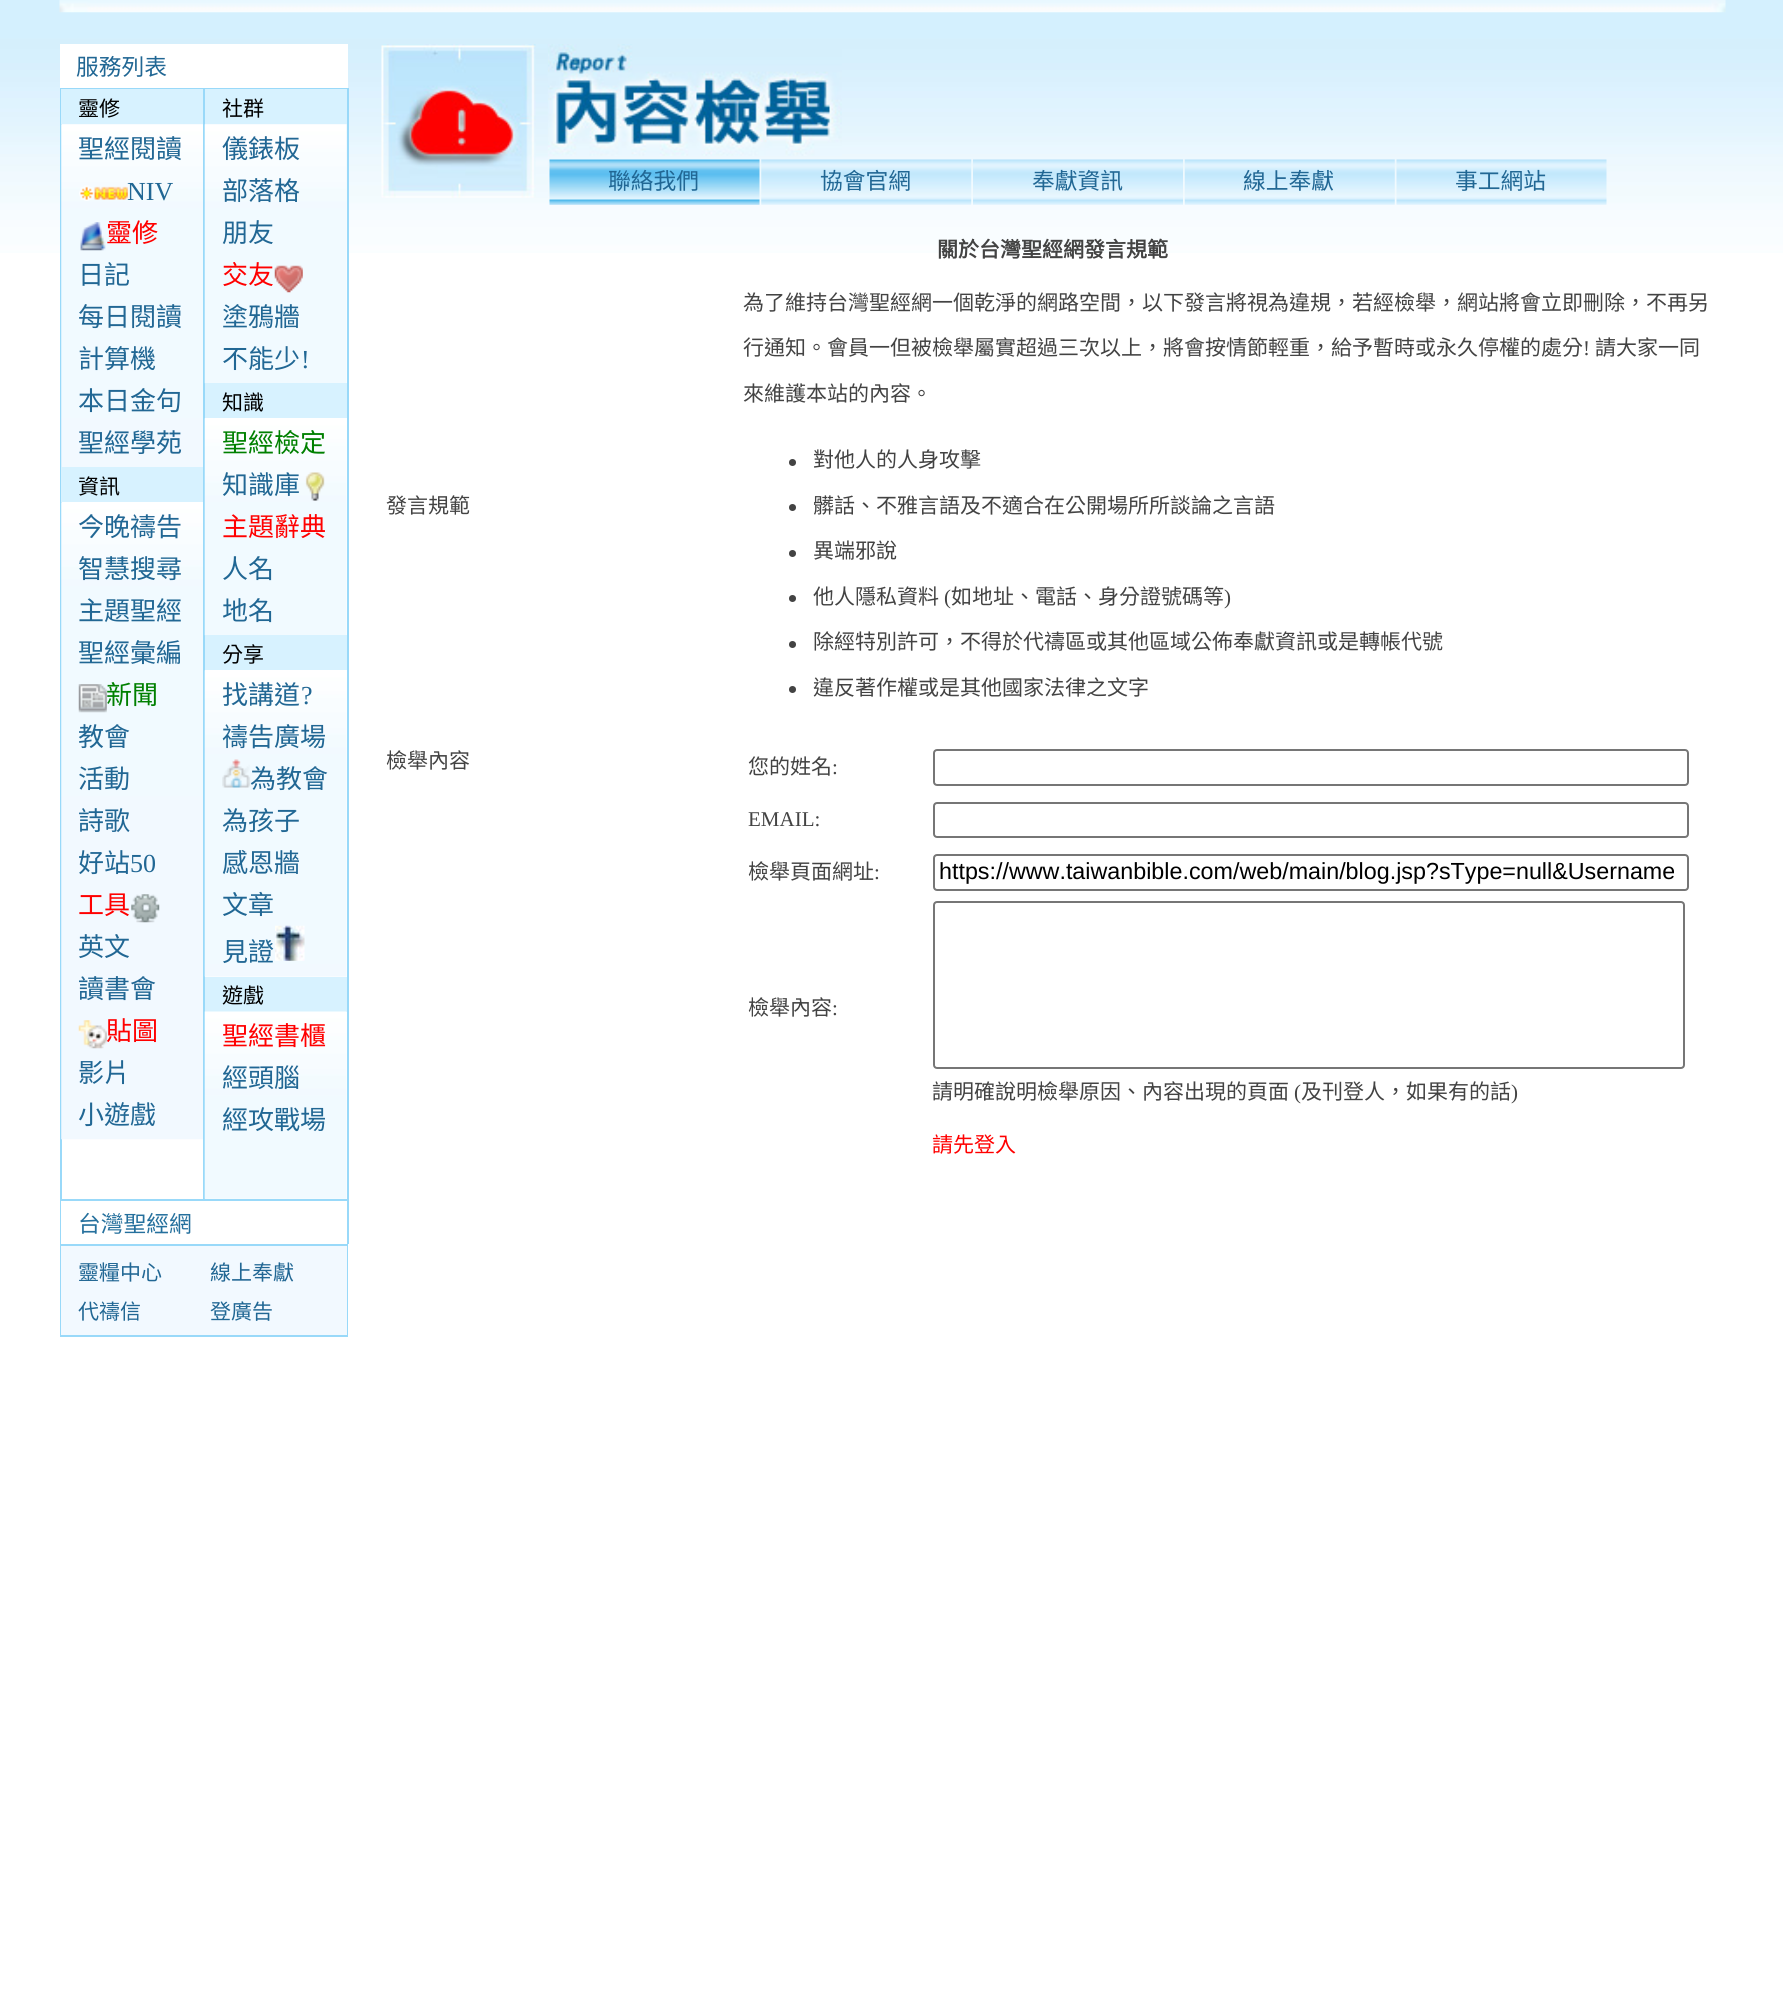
#include <cairo.h>
#include <math.h>
#include <stddef.h>


static void round_rect(cairo_t *cr, double x, double y, double w, double h, double r) {
    cairo_new_sub_path(cr);
    cairo_arc(cr, x + w - r, y + h - r, r, 0, M_PI / 2);
    cairo_arc(cr, x + r, y + h - r, r, M_PI / 2, M_PI);
    cairo_arc(cr, x + r, y + r, r, M_PI, 1.5 * M_PI);
    cairo_arc(cr, x + w - r, y + r, r, 1.5 * M_PI, 2 * M_PI);
    cairo_close_path(cr);
}

static void picture(cairo_t *cr, const char *path, double x, double y, double w, double h) {
    cairo_surface_t *image = cairo_image_surface_create_from_png(path);
    cairo_save(cr);
    cairo_set_source_surface(cr, image, x, y);
    cairo_rectangle(cr, x, y, w, h);
    cairo_fill(cr);
    cairo_restore(cr);
    cairo_surface_destroy(image);
}

int main(void) {
    cairo_surface_t *surface = cairo_image_surface_create(CAIRO_FORMAT_RGB24, 1783, 2002);
    cairo_t *cr = cairo_create(surface);
    cairo_font_options_t *options = cairo_font_options_create();
    cairo_font_options_set_hint_metrics(options, CAIRO_HINT_METRICS_OFF);
    cairo_font_options_set_hint_style(options, CAIRO_HINT_STYLE_NONE);
    cairo_set_font_options(cr, options);
    cairo_set_miter_limit(cr, 4);
    cairo_set_source_rgb(cr, 1, 1, 1);
    cairo_paint(cr);
    picture(cr, "img1.png", 0, 0, 1783, 253);
    picture(cr, "img2.png", 59, 0, 1667, 13);
    cairo_set_source_rgb(cr, 1, 1, 1);
    cairo_rectangle(cr, 60, 44, 288, 44);
    cairo_fill(cr);
    cairo_select_font_face(cr, "Noto Sans CJK TC", CAIRO_FONT_SLANT_NORMAL, CAIRO_FONT_WEIGHT_NORMAL);
    cairo_set_font_size(cr, 22.75);
    cairo_set_source_rgb(cr, 0.129, 0.404, 0.58);
    cairo_move_to(cr, 76, 75);
    cairo_show_text(cr, "服務列表");
    cairo_rectangle(cr, 61, 89, 143, 1111);
    cairo_set_source_rgb(cr, 0.6, 0.851, 0.973);
    cairo_stroke(cr);
    cairo_set_source_rgb(cr, 0.843, 0.949, 1);
    cairo_rectangle(cr, 61, 89, 142, 35);
    cairo_fill(cr);
    cairo_set_font_size(cr, 21);
    cairo_set_source_rgb(cr, 0, 0, 0);
    cairo_move_to(cr, 78, 116);
    cairo_show_text(cr, "靈修");
    picture(cr, "img3.png", 61, 124, 142, 343);
    cairo_set_font_size(cr, 26);
    cairo_set_source_rgb(cr, 0.129, 0.404, 0.58);
    cairo_move_to(cr, 78, 158);
    cairo_show_text(cr, "聖經閱讀");
    picture(cr, "img4.png", 79, 185, 49, 16);
    cairo_select_font_face(cr, "Liberation Serif", CAIRO_FONT_SLANT_NORMAL, CAIRO_FONT_WEIGHT_NORMAL);
    cairo_move_to(cr, 127, 200);
    cairo_show_text(cr, "NIV");
    picture(cr, "img5.png", 80, 222, 26, 29);
    cairo_select_font_face(cr, "Noto Sans CJK TC", CAIRO_FONT_SLANT_NORMAL, CAIRO_FONT_WEIGHT_NORMAL);
    cairo_set_source_rgb(cr, 1, 0, 0);
    cairo_move_to(cr, 106, 242);
    cairo_show_text(cr, "靈修");
    cairo_set_source_rgb(cr, 0.129, 0.404, 0.58);
    cairo_move_to(cr, 78, 284);
    cairo_show_text(cr, "日記");
    cairo_move_to(cr, 78, 326);
    cairo_show_text(cr, "每日閱讀");
    cairo_move_to(cr, 78, 368);
    cairo_show_text(cr, "計算機");
    cairo_move_to(cr, 78, 410);
    cairo_show_text(cr, "本日金句");
    cairo_move_to(cr, 78, 452);
    cairo_show_text(cr, "聖經學苑");
    cairo_set_source_rgb(cr, 0.843, 0.949, 1);
    cairo_rectangle(cr, 61, 467, 142, 35);
    cairo_fill(cr);
    cairo_set_font_size(cr, 21);
    cairo_set_source_rgb(cr, 0, 0, 0);
    cairo_move_to(cr, 78, 494);
    cairo_show_text(cr, "資訊");
    picture(cr, "img6.png", 61, 502, 142, 638);
    cairo_set_font_size(cr, 26);
    cairo_set_source_rgb(cr, 0.129, 0.404, 0.58);
    cairo_move_to(cr, 78, 536);
    cairo_show_text(cr, "今晚禱告");
    cairo_move_to(cr, 78, 578);
    cairo_show_text(cr, "智慧搜尋");
    cairo_move_to(cr, 78, 620);
    cairo_show_text(cr, "主題聖經");
    cairo_move_to(cr, 78, 662);
    cairo_show_text(cr, "聖經彙編");
    picture(cr, "img7.png", 78, 684, 29, 29);
    cairo_set_source_rgb(cr, 0, 0.502, 0);
    cairo_move_to(cr, 106, 704);
    cairo_show_text(cr, "新聞");
    cairo_set_source_rgb(cr, 0.129, 0.404, 0.58);
    cairo_move_to(cr, 78, 746);
    cairo_show_text(cr, "教會");
    cairo_move_to(cr, 78, 788);
    cairo_show_text(cr, "活動");
    cairo_move_to(cr, 78, 830);
    cairo_show_text(cr, "詩歌");
    cairo_move_to(cr, 78, 872);
    cairo_show_text(cr, "好站");
    cairo_select_font_face(cr, "Liberation Serif", CAIRO_FONT_SLANT_NORMAL, CAIRO_FONT_WEIGHT_NORMAL);
    cairo_move_to(cr, 130, 872);
    cairo_show_text(cr, "50");
    cairo_select_font_face(cr, "Noto Sans CJK TC", CAIRO_FONT_SLANT_NORMAL, CAIRO_FONT_WEIGHT_NORMAL);
    cairo_set_source_rgb(cr, 1, 0, 0);
    cairo_move_to(cr, 78, 914);
    cairo_show_text(cr, "工具");
    picture(cr, "img8.png", 131, 894, 29, 29);
    cairo_set_source_rgb(cr, 0.129, 0.404, 0.58);
    cairo_move_to(cr, 78, 956);
    cairo_show_text(cr, "英文");
    cairo_move_to(cr, 78, 998);
    cairo_show_text(cr, "讀書會");
    picture(cr, "img9.png", 78, 1020, 29, 29);
    cairo_set_source_rgb(cr, 1, 0, 0);
    cairo_move_to(cr, 106, 1040);
    cairo_show_text(cr, "貼圖");
    cairo_set_source_rgb(cr, 0.129, 0.404, 0.58);
    cairo_move_to(cr, 78, 1082);
    cairo_show_text(cr, "影片");
    cairo_move_to(cr, 78, 1124);
    cairo_show_text(cr, "小遊戲");
    cairo_set_source_rgb(cr, 0.6, 0.851, 0.973);
    cairo_rectangle(cr, 205, 88, 143, 1);
    cairo_fill(cr);
    cairo_rectangle(cr, 347, 88, 2, 1156);
    cairo_fill(cr);
    cairo_rectangle(cr, 205, 1199, 143, 2);
    cairo_fill(cr);
    cairo_set_source_rgb(cr, 0.843, 0.949, 1);
    cairo_rectangle(cr, 205, 89, 142, 35);
    cairo_fill(cr);
    cairo_set_font_size(cr, 21);
    cairo_set_source_rgb(cr, 0, 0, 0);
    cairo_move_to(cr, 222, 116);
    cairo_show_text(cr, "社群");
    picture(cr, "img10.png", 204, 124, 143, 260);
    cairo_set_font_size(cr, 26);
    cairo_set_source_rgb(cr, 0.129, 0.404, 0.58);
    cairo_move_to(cr, 222, 158);
    cairo_show_text(cr, "儀錶板");
    cairo_move_to(cr, 222, 200);
    cairo_show_text(cr, "部落格");
    cairo_move_to(cr, 222, 242);
    cairo_show_text(cr, "朋友");
    cairo_set_source_rgb(cr, 1, 0, 0);
    cairo_move_to(cr, 222, 284);
    cairo_show_text(cr, "交友");
    picture(cr, "img11.png", 274, 265, 29, 28);
    cairo_set_source_rgb(cr, 0.129, 0.404, 0.58);
    cairo_move_to(cr, 222, 326);
    cairo_show_text(cr, "塗鴉牆");
    cairo_move_to(cr, 222, 368);
    cairo_show_text(cr, "不能少");
    cairo_select_font_face(cr, "Liberation Serif", CAIRO_FONT_SLANT_NORMAL, CAIRO_FONT_WEIGHT_NORMAL);
    cairo_move_to(cr, 301, 368);
    cairo_show_text(cr, "!");
    cairo_set_source_rgb(cr, 0.843, 0.949, 1);
    cairo_rectangle(cr, 205, 383, 142, 35);
    cairo_fill(cr);
    cairo_select_font_face(cr, "Noto Sans CJK TC", CAIRO_FONT_SLANT_NORMAL, CAIRO_FONT_WEIGHT_NORMAL);
    cairo_set_font_size(cr, 21);
    cairo_set_source_rgb(cr, 0, 0, 0);
    cairo_move_to(cr, 222, 410);
    cairo_show_text(cr, "知識");
    picture(cr, "img12.png", 204, 418, 143, 218);
    cairo_set_font_size(cr, 26);
    cairo_set_source_rgb(cr, 0, 0.502, 0);
    cairo_move_to(cr, 222, 452);
    cairo_show_text(cr, "聖經檢定");
    cairo_set_source_rgb(cr, 0.129, 0.404, 0.58);
    cairo_move_to(cr, 222, 494);
    cairo_show_text(cr, "知識庫");
    picture(cr, "img13.png", 305, 472, 20, 29);
    cairo_set_source_rgb(cr, 1, 0, 0);
    cairo_move_to(cr, 222, 536);
    cairo_show_text(cr, "主題辭典");
    cairo_set_source_rgb(cr, 0.129, 0.404, 0.58);
    cairo_move_to(cr, 222, 578);
    cairo_show_text(cr, "人名");
    cairo_move_to(cr, 222, 620);
    cairo_show_text(cr, "地名");
    cairo_set_source_rgb(cr, 0.843, 0.949, 1);
    cairo_rectangle(cr, 205, 635, 142, 35);
    cairo_fill(cr);
    cairo_set_font_size(cr, 21);
    cairo_set_source_rgb(cr, 0, 0, 0);
    cairo_move_to(cr, 222, 662);
    cairo_show_text(cr, "分享");
    picture(cr, "img14.png", 204, 670, 143, 307);
    cairo_set_font_size(cr, 26);
    cairo_set_source_rgb(cr, 0.129, 0.404, 0.58);
    cairo_move_to(cr, 222, 704);
    cairo_show_text(cr, "找講道");
    cairo_select_font_face(cr, "Liberation Serif", CAIRO_FONT_SLANT_NORMAL, CAIRO_FONT_WEIGHT_NORMAL);
    cairo_move_to(cr, 301, 704);
    cairo_show_text(cr, "?");
    cairo_select_font_face(cr, "Noto Sans CJK TC", CAIRO_FONT_SLANT_NORMAL, CAIRO_FONT_WEIGHT_NORMAL);
    cairo_move_to(cr, 222, 746);
    cairo_show_text(cr, "禱告廣場");
    picture(cr, "img15.png", 222, 759, 29, 29);
    cairo_move_to(cr, 250, 788);
    cairo_show_text(cr, "為教會");
    cairo_move_to(cr, 222, 830);
    cairo_show_text(cr, "為孩子");
    cairo_move_to(cr, 222, 872);
    cairo_show_text(cr, "感恩牆");
    cairo_move_to(cr, 222, 914);
    cairo_show_text(cr, "文章");
    cairo_move_to(cr, 222, 961);
    cairo_show_text(cr, "見證");
    picture(cr, "img16.png", 275, 925, 30, 36);
    cairo_set_source_rgb(cr, 0.843, 0.949, 1);
    cairo_rectangle(cr, 205, 977, 142, 35);
    cairo_fill(cr);
    cairo_set_font_size(cr, 21);
    cairo_set_source_rgb(cr, 0, 0, 0);
    cairo_move_to(cr, 222, 1003);
    cairo_show_text(cr, "遊戲");
    picture(cr, "img17.png", 204, 1011, 143, 188);
    cairo_set_font_size(cr, 26);
    cairo_set_source_rgb(cr, 1, 0, 0);
    cairo_move_to(cr, 222, 1045);
    cairo_show_text(cr, "聖經書櫃");
    cairo_set_source_rgb(cr, 0.129, 0.404, 0.58);
    cairo_move_to(cr, 222, 1087);
    cairo_show_text(cr, "經頭腦");
    cairo_move_to(cr, 222, 1129);
    cairo_show_text(cr, "經攻戰場");
    cairo_set_source_rgb(cr, 0.6, 0.851, 0.973);
    cairo_rectangle(cr, 60, 1201, 1, 43);
    cairo_fill(cr);
    cairo_set_font_size(cr, 22.75);
    cairo_set_source_rgb(cr, 0.145, 0.439, 0.616);
    cairo_move_to(cr, 78, 1232);
    cairo_show_text(cr, "台灣聖經網");
    cairo_rectangle(cr, 61, 1245, 286, 91);
    cairo_set_source_rgb(cr, 0.6, 0.851, 0.973);
    cairo_stroke(cr);
    cairo_set_source_rgb(cr, 0.949, 0.976, 1);
    cairo_rectangle(cr, 61, 1246, 286, 89);
    cairo_fill(cr);
    cairo_set_font_size(cr, 21);
    cairo_set_source_rgb(cr, 0.129, 0.404, 0.58);
    cairo_move_to(cr, 78, 1280);
    cairo_show_text(cr, "靈糧中心");
    cairo_move_to(cr, 210, 1280);
    cairo_show_text(cr, "線上奉獻");
    cairo_move_to(cr, 78, 1319);
    cairo_show_text(cr, "代禱信");
    cairo_move_to(cr, 210, 1319);
    cairo_show_text(cr, "登廣告");
    picture(cr, "img18.png", 381, 44, 167, 154);
    picture(cr, "img19.png", 548, 44, 294, 112);
    picture(cr, "img20.png", 549, 159, 211, 46);
    cairo_set_font_size(cr, 22.75);
    cairo_move_to(cr, 608, 189);
    cairo_show_text(cr, "聯絡我們");
    picture(cr, "img21.png", 761, 159, 211, 46);
    cairo_move_to(cr, 820, 189);
    cairo_show_text(cr, "協會官網");
    picture(cr, "img22.png", 973, 159, 210, 46);
    cairo_move_to(cr, 1032, 189);
    cairo_show_text(cr, "奉獻資訊");
    picture(cr, "img23.png", 1184, 159, 211, 46);
    cairo_move_to(cr, 1243, 189);
    cairo_show_text(cr, "線上奉獻");
    picture(cr, "img24.png", 1396, 159, 211, 46);
    cairo_move_to(cr, 1455, 189);
    cairo_show_text(cr, "事工網站");
    cairo_select_font_face(cr, "Noto Sans CJK TC", CAIRO_FONT_SLANT_NORMAL, CAIRO_FONT_WEIGHT_BOLD);
    cairo_set_font_size(cr, 21);
    cairo_set_source_rgb(cr, 0.263, 0.263, 0.263);
    cairo_move_to(cr, 937, 257);
    cairo_show_text(cr, "關於台灣聖經網發言規範");
    cairo_select_font_face(cr, "Noto Sans CJK TC", CAIRO_FONT_SLANT_NORMAL, CAIRO_FONT_WEIGHT_NORMAL);
    cairo_move_to(cr, 386, 513);
    cairo_show_text(cr, "發言規範");
    cairo_move_to(cr, 743, 310);
    cairo_show_text(cr, "為了維持台灣聖經網一個乾淨的網路空間，以下發言將視為違規，若經檢舉，網站將會立即刪除，不再另");
    cairo_move_to(cr, 743, 355);
    cairo_show_text(cr, "行通知。會員一但被檢舉屬實超過三次以上，將會按情節輕重，給予暫時或永久停權的處分");
    cairo_select_font_face(cr, "Liberation Serif", CAIRO_FONT_SLANT_NORMAL, CAIRO_FONT_WEIGHT_NORMAL);
    cairo_move_to(cr, 1583, 355);
    cairo_show_text(cr, "!");
    cairo_select_font_face(cr, "Noto Sans CJK TC", CAIRO_FONT_SLANT_NORMAL, CAIRO_FONT_WEIGHT_NORMAL);
    cairo_move_to(cr, 1595, 355);
    cairo_show_text(cr, "請大家一同");
    cairo_move_to(cr, 743, 401);
    cairo_show_text(cr, "來維護本站的內容。");
    cairo_new_path(cr);
    cairo_arc(cr, 792.5, 462.5, 3.5, 0, 2 * M_PI);
    cairo_fill(cr);
    cairo_move_to(cr, 813, 467);
    cairo_show_text(cr, "對他人的人身攻擊");
    cairo_new_path(cr);
    cairo_arc(cr, 792.5, 507.5, 3.5, 0, 2 * M_PI);
    cairo_fill(cr);
    cairo_move_to(cr, 813, 513);
    cairo_show_text(cr, "髒話、不雅言語及不適合在公開場所所談論之言語");
    cairo_new_path(cr);
    cairo_arc(cr, 792.5, 553.5, 3.5, 0, 2 * M_PI);
    cairo_fill(cr);
    cairo_move_to(cr, 813, 558);
    cairo_show_text(cr, "異端邪說");
    cairo_new_path(cr);
    cairo_arc(cr, 792.5, 598.5, 3.5, 0, 2 * M_PI);
    cairo_fill(cr);
    cairo_move_to(cr, 813, 604);
    cairo_show_text(cr, "他人隱私資料");
    cairo_select_font_face(cr, "Liberation Serif", CAIRO_FONT_SLANT_NORMAL, CAIRO_FONT_WEIGHT_NORMAL);
    cairo_move_to(cr, 944, 604);
    cairo_show_text(cr, "(");
    cairo_select_font_face(cr, "Noto Sans CJK TC", CAIRO_FONT_SLANT_NORMAL, CAIRO_FONT_WEIGHT_NORMAL);
    cairo_move_to(cr, 951, 604);
    cairo_show_text(cr, "如地址、電話、身分證號碼等");
    cairo_select_font_face(cr, "Liberation Serif", CAIRO_FONT_SLANT_NORMAL, CAIRO_FONT_WEIGHT_NORMAL);
    cairo_move_to(cr, 1224, 604);
    cairo_show_text(cr, ")");
    cairo_new_path(cr);
    cairo_arc(cr, 792.5, 644.5, 3.5, 0, 2 * M_PI);
    cairo_fill(cr);
    cairo_select_font_face(cr, "Noto Sans CJK TC", CAIRO_FONT_SLANT_NORMAL, CAIRO_FONT_WEIGHT_NORMAL);
    cairo_move_to(cr, 813, 649);
    cairo_show_text(cr, "除經特別許可，不得於代禱區或其他區域公佈奉獻資訊或是轉帳代號");
    cairo_new_path(cr);
    cairo_arc(cr, 792.5, 689.5, 3.5, 0, 2 * M_PI);
    cairo_fill(cr);
    cairo_move_to(cr, 813, 695);
    cairo_show_text(cr, "違反著作權或是其他國家法律之文字");
    cairo_move_to(cr, 386, 768);
    cairo_show_text(cr, "檢舉內容");
    cairo_move_to(cr, 748, 774);
    cairo_show_text(cr, "您的姓名");
    cairo_select_font_face(cr, "Liberation Serif", CAIRO_FONT_SLANT_NORMAL, CAIRO_FONT_WEIGHT_NORMAL);
    cairo_move_to(cr, 832, 774);
    cairo_show_text(cr, ":");
    round_rect(cr, 934, 750, 754, 35, 3);
    cairo_set_source_rgb(cr, 0.463, 0.463, 0.463);
    cairo_stroke(cr);
    cairo_set_source_rgb(cr, 0.263, 0.263, 0.263);
    cairo_move_to(cr, 748, 826);
    cairo_show_text(cr, "EMAIL:");
    round_rect(cr, 934, 803, 754, 34, 3);
    cairo_set_source_rgb(cr, 0.463, 0.463, 0.463);
    cairo_stroke(cr);
    cairo_select_font_face(cr, "Noto Sans CJK TC", CAIRO_FONT_SLANT_NORMAL, CAIRO_FONT_WEIGHT_NORMAL);
    cairo_set_source_rgb(cr, 0.263, 0.263, 0.263);
    cairo_move_to(cr, 748, 879);
    cairo_show_text(cr, "檢舉頁面網址");
    cairo_select_font_face(cr, "Liberation Serif", CAIRO_FONT_SLANT_NORMAL, CAIRO_FONT_WEIGHT_NORMAL);
    cairo_move_to(cr, 874, 879);
    cairo_show_text(cr, ":");
    round_rect(cr, 934, 855, 754, 35, 3);
    cairo_set_source_rgb(cr, 0.463, 0.463, 0.463);
    cairo_stroke(cr);
    cairo_select_font_face(cr, "Liberation Sans", CAIRO_FONT_SLANT_NORMAL, CAIRO_FONT_WEIGHT_NORMAL);
    cairo_set_font_size(cr, 23.3);
    cairo_set_source_rgb(cr, 0, 0, 0);
    cairo_move_to(cr, 939, 879);
    cairo_show_text(cr, "https://www.taiwanbible.com/web/main/blog.jsp?sType=null&Username");
    cairo_select_font_face(cr, "Noto Sans CJK TC", CAIRO_FONT_SLANT_NORMAL, CAIRO_FONT_WEIGHT_NORMAL);
    cairo_set_font_size(cr, 21);
    cairo_set_source_rgb(cr, 0.263, 0.263, 0.263);
    cairo_move_to(cr, 748, 1015);
    cairo_show_text(cr, "檢舉內容");
    cairo_select_font_face(cr, "Liberation Serif", CAIRO_FONT_SLANT_NORMAL, CAIRO_FONT_WEIGHT_NORMAL);
    cairo_move_to(cr, 832, 1015);
    cairo_show_text(cr, ":");
    round_rect(cr, 934, 902, 750, 166, 3);
    cairo_set_source_rgb(cr, 0.463, 0.463, 0.463);
    cairo_stroke(cr);
    cairo_select_font_face(cr, "Noto Sans CJK TC", CAIRO_FONT_SLANT_NORMAL, CAIRO_FONT_WEIGHT_NORMAL);
    cairo_set_source_rgb(cr, 0.263, 0.263, 0.263);
    cairo_move_to(cr, 932, 1099);
    cairo_show_text(cr, "請明確說明檢舉原因、內容出現的頁面");
    cairo_select_font_face(cr, "Liberation Serif", CAIRO_FONT_SLANT_NORMAL, CAIRO_FONT_WEIGHT_NORMAL);
    cairo_move_to(cr, 1294, 1099);
    cairo_show_text(cr, "(");
    cairo_select_font_face(cr, "Noto Sans CJK TC", CAIRO_FONT_SLANT_NORMAL, CAIRO_FONT_WEIGHT_NORMAL);
    cairo_move_to(cr, 1301, 1099);
    cairo_show_text(cr, "及刊登人，如果有的話");
    cairo_select_font_face(cr, "Liberation Serif", CAIRO_FONT_SLANT_NORMAL, CAIRO_FONT_WEIGHT_NORMAL);
    cairo_move_to(cr, 1511, 1099);
    cairo_show_text(cr, ")");
    cairo_select_font_face(cr, "Noto Sans CJK TC", CAIRO_FONT_SLANT_NORMAL, CAIRO_FONT_WEIGHT_NORMAL);
    cairo_set_source_rgb(cr, 1, 0, 0);
    cairo_move_to(cr, 932, 1152);
    cairo_show_text(cr, "請先登入");
    cairo_surface_write_to_png(surface, "page.png");
    cairo_font_options_destroy(options);
    cairo_destroy(cr);
    cairo_surface_destroy(surface);
    return 0;
}
